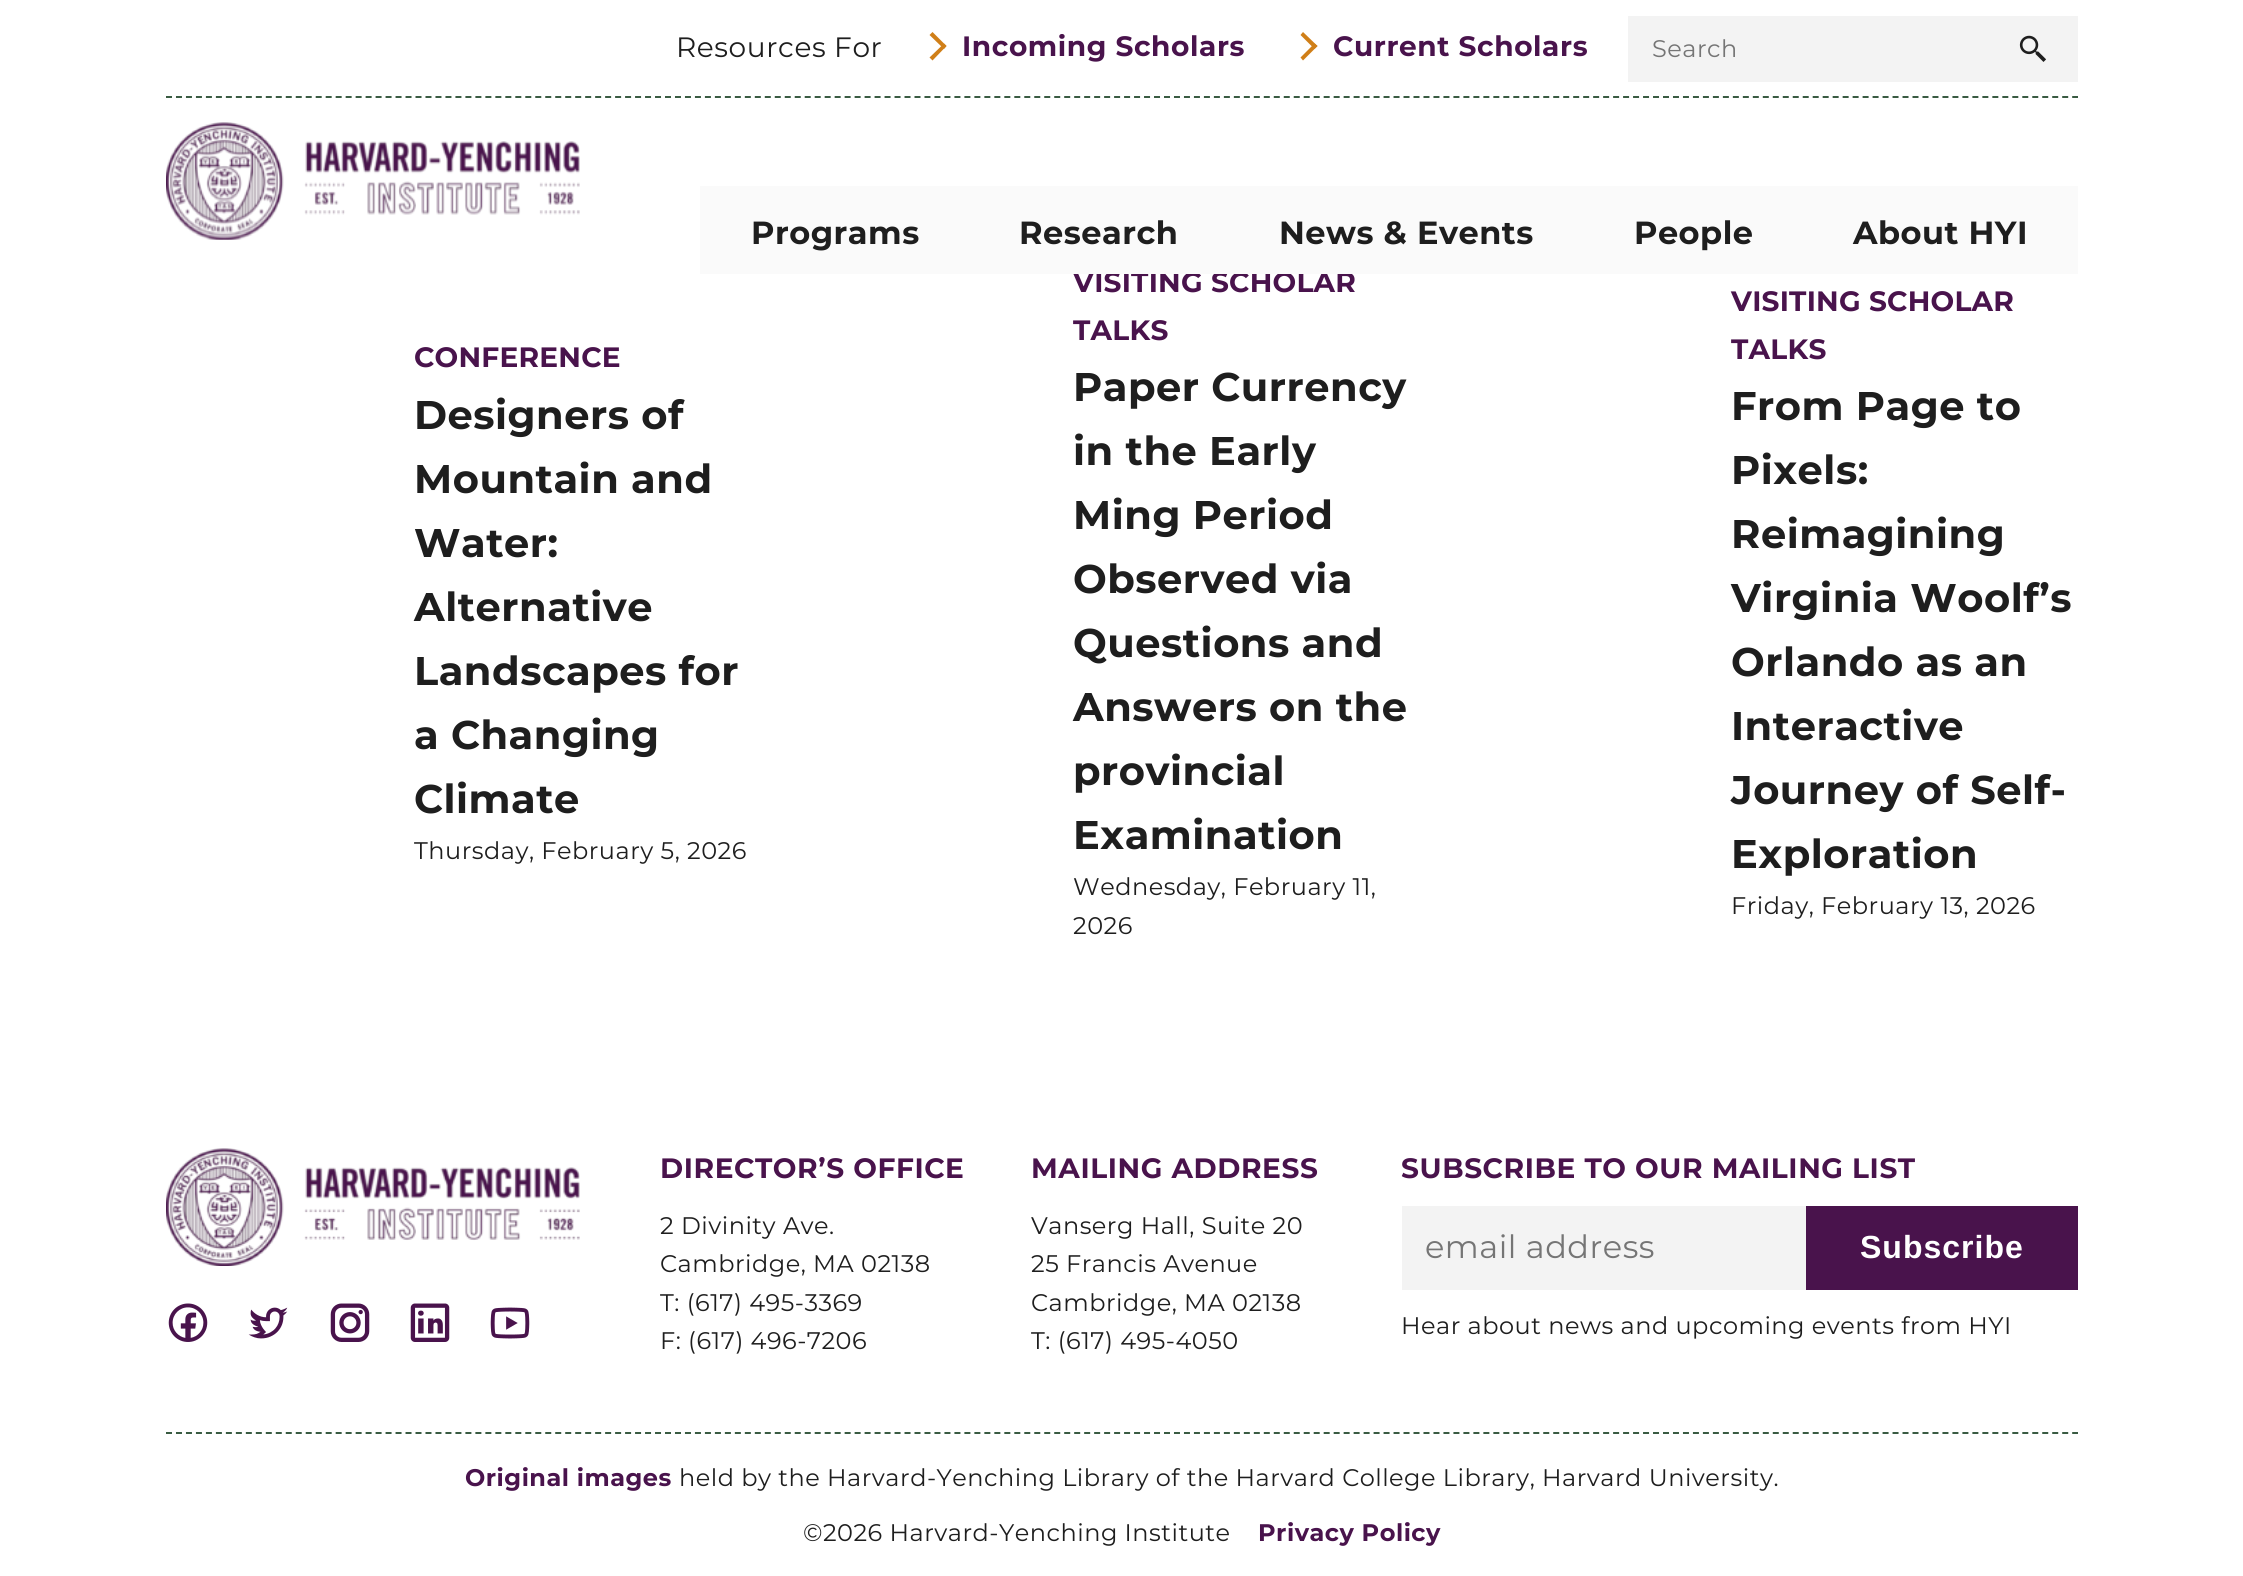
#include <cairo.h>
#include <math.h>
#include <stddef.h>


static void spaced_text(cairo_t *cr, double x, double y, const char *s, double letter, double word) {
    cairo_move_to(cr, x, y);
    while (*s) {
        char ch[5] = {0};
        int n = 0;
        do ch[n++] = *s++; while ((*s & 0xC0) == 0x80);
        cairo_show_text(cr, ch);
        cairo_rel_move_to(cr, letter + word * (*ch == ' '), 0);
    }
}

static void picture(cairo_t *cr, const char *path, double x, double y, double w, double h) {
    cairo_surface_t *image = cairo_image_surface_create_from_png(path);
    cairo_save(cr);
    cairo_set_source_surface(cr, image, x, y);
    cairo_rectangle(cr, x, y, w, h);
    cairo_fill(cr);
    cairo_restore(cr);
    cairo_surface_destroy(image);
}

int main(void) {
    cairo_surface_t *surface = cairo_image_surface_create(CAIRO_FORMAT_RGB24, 2243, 1576);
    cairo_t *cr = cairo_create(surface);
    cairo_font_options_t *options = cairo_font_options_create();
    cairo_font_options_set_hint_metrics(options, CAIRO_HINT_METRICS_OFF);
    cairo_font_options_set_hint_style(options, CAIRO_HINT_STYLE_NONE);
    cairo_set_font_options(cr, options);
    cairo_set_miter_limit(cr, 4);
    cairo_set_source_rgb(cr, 1, 1, 1);
    cairo_paint(cr);
    cairo_select_font_face(cr, "Montserrat", CAIRO_FONT_SLANT_NORMAL, CAIRO_FONT_WEIGHT_BOLD);
    cairo_set_font_size(cr, 28);
    cairo_set_source_rgb(cr, 0.286, 0.075, 0.298);
    spaced_text(cr, 1073, 292, "VISITING SCHOLAR", 0.25, 0);
    cairo_set_source_rgb(cr, 1, 1, 1);
    cairo_rectangle(cr, 1072, 272, 279, 2);
    cairo_fill(cr);
    cairo_new_path(cr);
    cairo_move_to(cr, 166, 97);
    cairo_line_to(cr, 2078, 97);
    cairo_set_source_rgb(cr, 0.224, 0.357, 0.259);
    cairo_set_dash(cr, (double[]){6, 3.98}, 2, 0);
    cairo_stroke(cr);
    cairo_select_font_face(cr, "Montserrat", CAIRO_FONT_SLANT_NORMAL, CAIRO_FONT_WEIGHT_NORMAL);
    cairo_set_source_rgb(cr, 0.118, 0.118, 0.118);
    spaced_text(cr, 676, 57, "Resources For", 0.6, 0);
    cairo_set_source_rgb(cr, 0.816, 0.498, 0.094);
    cairo_new_path(cr);
    cairo_move_to(cr, 932.5, 32);
    cairo_line_to(cr, 946.5, 46);
    cairo_line_to(cr, 944, 49);
    cairo_line_to(cr, 929.5, 35);
    cairo_close_path(cr);
    cairo_fill(cr);
    cairo_new_path(cr);
    cairo_move_to(cr, 944, 43.5);
    cairo_line_to(cr, 946.5, 46);
    cairo_line_to(cr, 932.5, 60.5);
    cairo_line_to(cr, 929.5, 57.5);
    cairo_close_path(cr);
    cairo_fill(cr);
    cairo_select_font_face(cr, "Montserrat", CAIRO_FONT_SLANT_NORMAL, CAIRO_FONT_WEIGHT_BOLD);
    cairo_set_source_rgb(cr, 0.286, 0.075, 0.298);
    spaced_text(cr, 962, 56, "Incoming Scholars", 0.6, 0);
    cairo_set_source_rgb(cr, 0.816, 0.498, 0.094);
    cairo_new_path(cr);
    cairo_move_to(cr, 1303, 32);
    cairo_line_to(cr, 1317.5, 46);
    cairo_line_to(cr, 1314.5, 49);
    cairo_line_to(cr, 1300.5, 35);
    cairo_close_path(cr);
    cairo_fill(cr);
    cairo_new_path(cr);
    cairo_move_to(cr, 1314.5, 43.5);
    cairo_line_to(cr, 1317.5, 46);
    cairo_line_to(cr, 1303, 60.5);
    cairo_line_to(cr, 1300.5, 57.5);
    cairo_close_path(cr);
    cairo_fill(cr);
    cairo_set_source_rgb(cr, 0.286, 0.075, 0.298);
    spaced_text(cr, 1333, 56, "Current Scholars", 0.6, 0);
    cairo_set_source_rgb(cr, 0.953, 0.953, 0.953);
    cairo_rectangle(cr, 1628, 16, 450, 66);
    cairo_fill(cr);
    cairo_select_font_face(cr, "Montserrat", CAIRO_FONT_SLANT_NORMAL, CAIRO_FONT_WEIGHT_NORMAL);
    cairo_set_font_size(cr, 24);
    cairo_set_source_rgb(cr, 0.459, 0.459, 0.459);
    spaced_text(cr, 1652, 57, "Search", 0.5, 0);
    picture(cr, "img1.png", 2019, 35, 27, 27);
    picture(cr, "img2.png", 166, 122, 414, 118);
    cairo_set_source_rgb(cr, 0.98, 0.98, 0.98);
    cairo_rectangle(cr, 700, 186, 1378, 88);
    cairo_fill(cr);
    cairo_select_font_face(cr, "Montserrat", CAIRO_FONT_SLANT_NORMAL, CAIRO_FONT_WEIGHT_BOLD);
    cairo_set_font_size(cr, 32);
    cairo_set_source_rgb(cr, 0.118, 0.118, 0.118);
    spaced_text(cr, 751, 244, "Programs", 0.5, 0);
    spaced_text(cr, 1019, 244, "Research", 0.5, 0);
    spaced_text(cr, 1279, 244, "News & Events", 0.5, 0);
    spaced_text(cr, 1634, 244, "People", 0.5, 0);
    spaced_text(cr, 1853, 244, "About HYI", 0.5, 0);
    cairo_set_font_size(cr, 28);
    cairo_set_source_rgb(cr, 0.286, 0.075, 0.298);
    spaced_text(cr, 414, 367, "CONFERENCE", 0.25, 0);
    cairo_set_font_size(cr, 40);
    cairo_set_source_rgb(cr, 0.118, 0.118, 0.118);
    spaced_text(cr, 414, 429, "Designers of", 0.5, 0);
    spaced_text(cr, 414, 493, "Mountain and", 0.5, 0);
    spaced_text(cr, 414, 557, "Water:", 0.5, 0);
    spaced_text(cr, 414, 621, "Alternative", 0.5, 0);
    spaced_text(cr, 414, 685, "Landscapes for", 0.5, 0);
    spaced_text(cr, 414, 749, "a Changing", 0.5, 0);
    spaced_text(cr, 414, 813, "Climate", 0.5, 0);
    cairo_select_font_face(cr, "Montserrat", CAIRO_FONT_SLANT_NORMAL, CAIRO_FONT_WEIGHT_NORMAL);
    cairo_set_font_size(cr, 24);
    spaced_text(cr, 414, 859, "Thursday, February 5, 2026", 0.5, 0);
    cairo_select_font_face(cr, "Montserrat", CAIRO_FONT_SLANT_NORMAL, CAIRO_FONT_WEIGHT_BOLD);
    cairo_set_font_size(cr, 28);
    cairo_set_source_rgb(cr, 0.286, 0.075, 0.298);
    spaced_text(cr, 1073, 340, "TALKS", 0.25, 0);
    cairo_set_font_size(cr, 40);
    cairo_set_source_rgb(cr, 0.118, 0.118, 0.118);
    spaced_text(cr, 1073, 401, "Paper Currency", 0.5, 0);
    spaced_text(cr, 1073, 465, "in the Early", 0.5, 0);
    spaced_text(cr, 1073, 529, "Ming Period", 0.5, 0);
    spaced_text(cr, 1073, 593, "Observed via", 0.5, 0);
    spaced_text(cr, 1073, 657, "Questions and", 0.5, 0);
    spaced_text(cr, 1073, 721, "Answers on the", 0.5, 0);
    spaced_text(cr, 1073, 785, "provincial", 0.5, 0);
    spaced_text(cr, 1073, 849, "Examination", 0.5, 0);
    cairo_select_font_face(cr, "Montserrat", CAIRO_FONT_SLANT_NORMAL, CAIRO_FONT_WEIGHT_NORMAL);
    cairo_set_font_size(cr, 24);
    spaced_text(cr, 1073, 895, "Wednesday, February 11,", 0.5, 0);
    spaced_text(cr, 1073, 934, "2026", 0.5, 0);
    cairo_select_font_face(cr, "Montserrat", CAIRO_FONT_SLANT_NORMAL, CAIRO_FONT_WEIGHT_BOLD);
    cairo_set_font_size(cr, 28);
    cairo_set_source_rgb(cr, 0.286, 0.075, 0.298);
    spaced_text(cr, 1731, 311, "VISITING SCHOLAR", 0.25, 0);
    spaced_text(cr, 1731, 359, "TALKS", 0.25, 0);
    cairo_set_font_size(cr, 40);
    cairo_set_source_rgb(cr, 0.118, 0.118, 0.118);
    spaced_text(cr, 1731, 420, "From Page to", 0.5, 0);
    spaced_text(cr, 1731, 484, "Pixels:", 0.5, 0);
    spaced_text(cr, 1731, 548, "Reimagining", 0.5, 0);
    spaced_text(cr, 1731, 612, "Virginia Woolf’s", 0.5, 0);
    spaced_text(cr, 1731, 676, "Orlando as an", 0.5, 0);
    spaced_text(cr, 1731, 740, "Interactive", 0.5, 0);
    spaced_text(cr, 1731, 804, "Journey of Self-", 0.5, 0);
    spaced_text(cr, 1731, 868, "Exploration", 0.5, 0);
    cairo_select_font_face(cr, "Montserrat", CAIRO_FONT_SLANT_NORMAL, CAIRO_FONT_WEIGHT_NORMAL);
    cairo_set_font_size(cr, 24);
    spaced_text(cr, 1731, 914, "Friday, February 13, 2026", 0.5, 0);
    picture(cr, "img3.png", 166, 1148, 414, 118);
    picture(cr, "img4.png", 168, 1303, 40, 39);
    picture(cr, "img5.png", 248, 1307, 40, 32);
    picture(cr, "img6.png", 330, 1303, 40, 39);
    picture(cr, "img7.png", 410, 1303, 40, 39);
    picture(cr, "img8.png", 490, 1307, 40, 32);
    cairo_select_font_face(cr, "Montserrat", CAIRO_FONT_SLANT_NORMAL, CAIRO_FONT_WEIGHT_BOLD);
    cairo_set_font_size(cr, 28);
    cairo_set_source_rgb(cr, 0.286, 0.075, 0.298);
    spaced_text(cr, 660, 1178, "DIRECTOR’S OFFICE", 0.6, 0);
    cairo_select_font_face(cr, "Montserrat", CAIRO_FONT_SLANT_NORMAL, CAIRO_FONT_WEIGHT_NORMAL);
    cairo_set_font_size(cr, 24);
    cairo_set_source_rgb(cr, 0.118, 0.118, 0.118);
    spaced_text(cr, 660, 1234, "2 Divinity Ave.", 0.5, 0);
    spaced_text(cr, 660, 1272, "Cambridge, MA 02138", 0.5, 0);
    spaced_text(cr, 660, 1311, "T: (617) 495-3369", 0.5, 0);
    spaced_text(cr, 660, 1349, "F: (617) 496-7206", 0.5, 0);
    cairo_select_font_face(cr, "Montserrat", CAIRO_FONT_SLANT_NORMAL, CAIRO_FONT_WEIGHT_BOLD);
    cairo_set_font_size(cr, 28);
    cairo_set_source_rgb(cr, 0.286, 0.075, 0.298);
    spaced_text(cr, 1031, 1178, "MAILING ADDRESS", 0.6, 0);
    cairo_select_font_face(cr, "Montserrat", CAIRO_FONT_SLANT_NORMAL, CAIRO_FONT_WEIGHT_NORMAL);
    cairo_set_font_size(cr, 24);
    cairo_set_source_rgb(cr, 0.118, 0.118, 0.118);
    spaced_text(cr, 1031, 1234, "Vanserg Hall, Suite 20", 0.5, 0);
    spaced_text(cr, 1031, 1272, "25 Francis Avenue", 0.5, 0);
    spaced_text(cr, 1031, 1311, "Cambridge, MA 02138", 0.5, 0);
    spaced_text(cr, 1031, 1349, "T: (617) 495-4050", 0.5, 0);
    cairo_select_font_face(cr, "Montserrat", CAIRO_FONT_SLANT_NORMAL, CAIRO_FONT_WEIGHT_BOLD);
    cairo_set_font_size(cr, 28);
    cairo_set_source_rgb(cr, 0.286, 0.075, 0.298);
    spaced_text(cr, 1401, 1178, "SUBSCRIBE TO OUR MAILING LIST", 0.6, 0);
    cairo_set_source_rgb(cr, 0.953, 0.953, 0.953);
    cairo_rectangle(cr, 1402, 1206, 404, 84);
    cairo_fill(cr);
    cairo_select_font_face(cr, "Montserrat", CAIRO_FONT_SLANT_NORMAL, CAIRO_FONT_WEIGHT_NORMAL);
    cairo_set_font_size(cr, 32);
    cairo_set_source_rgb(cr, 0.459, 0.459, 0.459);
    spaced_text(cr, 1425, 1258, "email address", 0.5, 0);
    cairo_set_source_rgb(cr, 0.286, 0.075, 0.298);
    cairo_rectangle(cr, 1806, 1206, 272, 84);
    cairo_fill(cr);
    cairo_select_font_face(cr, "Liberation Sans", CAIRO_FONT_SLANT_NORMAL, CAIRO_FONT_WEIGHT_BOLD);
    cairo_set_source_rgb(cr, 1, 1, 1);
    spaced_text(cr, 1860, 1258, "Subscribe", 1, 0);
    cairo_select_font_face(cr, "Montserrat", CAIRO_FONT_SLANT_NORMAL, CAIRO_FONT_WEIGHT_NORMAL);
    cairo_set_font_size(cr, 24);
    cairo_set_source_rgb(cr, 0.118, 0.118, 0.118);
    spaced_text(cr, 1401, 1334, "Hear about news and upcoming events from HYI", 0.5, 0);
    cairo_new_path(cr);
    cairo_move_to(cr, 166, 1433);
    cairo_line_to(cr, 2078, 1433);
    cairo_set_source_rgb(cr, 0.224, 0.357, 0.259);
    cairo_stroke(cr);
    cairo_select_font_face(cr, "Montserrat", CAIRO_FONT_SLANT_NORMAL, CAIRO_FONT_WEIGHT_BOLD);
    cairo_set_source_rgb(cr, 0.286, 0.075, 0.298);
    spaced_text(cr, 465, 1486, "Original images", 0.5, 0);
    cairo_select_font_face(cr, "Montserrat", CAIRO_FONT_SLANT_NORMAL, CAIRO_FONT_WEIGHT_NORMAL);
    cairo_set_source_rgb(cr, 0.118, 0.118, 0.118);
    spaced_text(cr, 679, 1486, "held by the Harvard-Yenching Library of the Harvard College Library, Harvard University.", 0.5, 0);
    spaced_text(cr, 803, 1541, "©2026 Harvard-Yenching Institute", 0.5, 0);
    cairo_select_font_face(cr, "Montserrat", CAIRO_FONT_SLANT_NORMAL, CAIRO_FONT_WEIGHT_BOLD);
    cairo_set_source_rgb(cr, 0.286, 0.075, 0.298);
    spaced_text(cr, 1258, 1541, "Privacy Policy", 0.5, 0);
    cairo_surface_write_to_png(surface, "page.png");
    cairo_font_options_destroy(options);
    cairo_destroy(cr);
    cairo_surface_destroy(surface);
    return 0;
}
